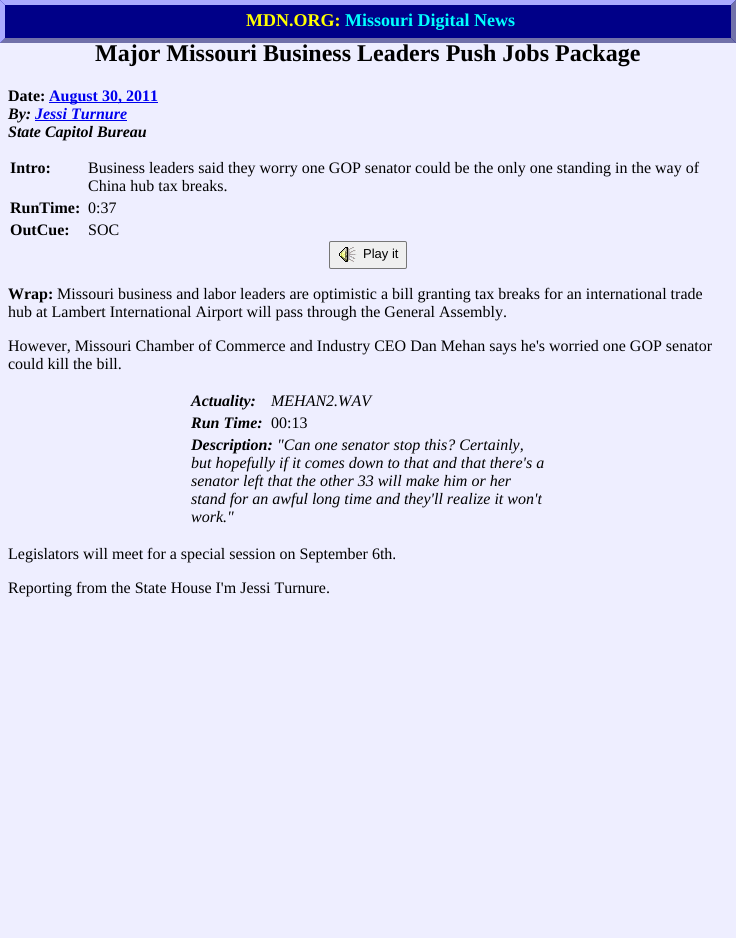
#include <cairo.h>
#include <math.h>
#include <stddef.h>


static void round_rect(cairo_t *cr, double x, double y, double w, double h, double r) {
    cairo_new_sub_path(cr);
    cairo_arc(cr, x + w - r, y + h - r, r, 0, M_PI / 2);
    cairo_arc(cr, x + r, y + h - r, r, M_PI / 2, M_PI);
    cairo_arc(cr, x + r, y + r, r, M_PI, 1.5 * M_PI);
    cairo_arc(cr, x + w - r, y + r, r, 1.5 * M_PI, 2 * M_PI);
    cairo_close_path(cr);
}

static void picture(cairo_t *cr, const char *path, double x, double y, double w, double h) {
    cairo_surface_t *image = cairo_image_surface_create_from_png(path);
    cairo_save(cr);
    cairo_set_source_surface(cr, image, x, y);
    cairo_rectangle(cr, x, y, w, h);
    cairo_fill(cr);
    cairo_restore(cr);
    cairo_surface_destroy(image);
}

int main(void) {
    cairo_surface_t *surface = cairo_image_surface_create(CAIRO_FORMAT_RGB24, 736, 938);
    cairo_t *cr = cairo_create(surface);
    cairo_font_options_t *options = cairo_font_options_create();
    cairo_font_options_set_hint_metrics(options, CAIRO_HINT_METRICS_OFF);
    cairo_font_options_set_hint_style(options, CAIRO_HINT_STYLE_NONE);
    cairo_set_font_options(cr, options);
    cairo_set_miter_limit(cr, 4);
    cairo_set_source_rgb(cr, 0.933, 0.933, 1);
    cairo_paint(cr);
    cairo_set_source_rgb(cr, 0, 0, 0.533);
    cairo_rectangle(cr, 0, 0, 736, 43);
    cairo_fill(cr);
    cairo_set_source_rgb(cr, 0.667, 0.667, 1);
    cairo_new_path(cr);
    cairo_move_to(cr, 0, 0);
    cairo_line_to(cr, 736, 0);
    cairo_line_to(cr, 731, 5);
    cairo_line_to(cr, 5, 5);
    cairo_close_path(cr);
    cairo_fill(cr);
    cairo_set_source_rgb(cr, 0.443, 0.443, 0.667);
    cairo_new_path(cr);
    cairo_move_to(cr, 736, 0);
    cairo_line_to(cr, 736, 43);
    cairo_line_to(cr, 731, 38);
    cairo_line_to(cr, 731, 5);
    cairo_close_path(cr);
    cairo_fill(cr);
    cairo_new_path(cr);
    cairo_move_to(cr, 736, 43);
    cairo_line_to(cr, 0, 43);
    cairo_line_to(cr, 5, 38);
    cairo_line_to(cr, 731, 38);
    cairo_close_path(cr);
    cairo_fill(cr);
    cairo_set_source_rgb(cr, 0.667, 0.667, 1);
    cairo_new_path(cr);
    cairo_move_to(cr, 0, 43);
    cairo_line_to(cr, 0, 0);
    cairo_line_to(cr, 5, 5);
    cairo_line_to(cr, 5, 38);
    cairo_close_path(cr);
    cairo_fill(cr);
    cairo_select_font_face(cr, "Liberation Serif", CAIRO_FONT_SLANT_NORMAL, CAIRO_FONT_WEIGHT_BOLD);
    cairo_set_font_size(cr, 18);
    cairo_set_source_rgb(cr, 1, 1, 0);
    cairo_move_to(cr, 246, 26);
    cairo_show_text(cr, "MDN.ORG:");
    cairo_set_source_rgb(cr, 0, 1, 1);
    cairo_move_to(cr, 345, 26);
    cairo_show_text(cr, "Missouri Digital News");
    cairo_set_font_size(cr, 24);
    cairo_set_source_rgb(cr, 0, 0, 0);
    cairo_move_to(cr, 95, 61);
    cairo_show_text(cr, "Major Missouri Business Leaders Push Jobs Package");
    cairo_set_font_size(cr, 16);
    cairo_move_to(cr, 8, 101);
    cairo_show_text(cr, "Date:");
    cairo_set_source_rgb(cr, 0, 0, 0.933);
    cairo_rectangle(cr, 49, 102, 109, 1);
    cairo_fill(cr);
    cairo_move_to(cr, 49, 101);
    cairo_show_text(cr, "August 30, 2011");
    cairo_select_font_face(cr, "Liberation Serif", CAIRO_FONT_SLANT_ITALIC, CAIRO_FONT_WEIGHT_BOLD);
    cairo_set_source_rgb(cr, 0, 0, 0);
    cairo_move_to(cr, 8, 119);
    cairo_show_text(cr, "By:");
    cairo_set_source_rgb(cr, 0, 0, 0.933);
    cairo_move_to(cr, 35, 119);
    cairo_show_text(cr, "Jessi Turnure");
    cairo_rectangle(cr, 35, 120, 92, 1);
    cairo_fill(cr);
    cairo_set_source_rgb(cr, 0, 0, 0);
    cairo_move_to(cr, 8, 137);
    cairo_show_text(cr, "State Capitol Bureau");
    cairo_select_font_face(cr, "Liberation Serif", CAIRO_FONT_SLANT_NORMAL, CAIRO_FONT_WEIGHT_BOLD);
    cairo_move_to(cr, 10, 173);
    cairo_show_text(cr, "Intro:");
    cairo_select_font_face(cr, "Liberation Serif", CAIRO_FONT_SLANT_NORMAL, CAIRO_FONT_WEIGHT_NORMAL);
    cairo_move_to(cr, 88, 173);
    cairo_show_text(cr, "Business leaders said they worry one GOP senator could be the only one standing in the way of");
    cairo_move_to(cr, 88, 191);
    cairo_show_text(cr, "China hub tax breaks.");
    cairo_select_font_face(cr, "Liberation Serif", CAIRO_FONT_SLANT_NORMAL, CAIRO_FONT_WEIGHT_BOLD);
    cairo_move_to(cr, 10, 213);
    cairo_show_text(cr, "RunTime:");
    cairo_select_font_face(cr, "Liberation Serif", CAIRO_FONT_SLANT_NORMAL, CAIRO_FONT_WEIGHT_NORMAL);
    cairo_move_to(cr, 88, 213);
    cairo_show_text(cr, "0:37");
    cairo_select_font_face(cr, "Liberation Serif", CAIRO_FONT_SLANT_NORMAL, CAIRO_FONT_WEIGHT_BOLD);
    cairo_move_to(cr, 10, 235);
    cairo_show_text(cr, "OutCue:");
    cairo_select_font_face(cr, "Liberation Serif", CAIRO_FONT_SLANT_NORMAL, CAIRO_FONT_WEIGHT_NORMAL);
    cairo_move_to(cr, 88, 235);
    cairo_show_text(cr, "SOC");
    cairo_set_source_rgb(cr, 0.937, 0.937, 0.937);
    round_rect(cr, 329.5, 241.5, 77, 27, 1.5);
    cairo_fill_preserve(cr);
    cairo_set_source_rgb(cr, 0.463, 0.463, 0.463);
    cairo_set_line_width(cr, 1);
    cairo_stroke(cr);
    picture(cr, "img1.png", 339, 247, 18, 15);
    cairo_select_font_face(cr, "Liberation Sans", CAIRO_FONT_SLANT_NORMAL, CAIRO_FONT_WEIGHT_NORMAL);
    cairo_set_font_size(cr, 13);
    cairo_set_source_rgb(cr, 0, 0, 0);
    cairo_move_to(cr, 363, 258);
    cairo_show_text(cr, "Play it");
    cairo_select_font_face(cr, "Liberation Serif", CAIRO_FONT_SLANT_NORMAL, CAIRO_FONT_WEIGHT_BOLD);
    cairo_set_font_size(cr, 16);
    cairo_move_to(cr, 8, 299);
    cairo_show_text(cr, "Wrap:");
    cairo_select_font_face(cr, "Liberation Serif", CAIRO_FONT_SLANT_NORMAL, CAIRO_FONT_WEIGHT_NORMAL);
    cairo_move_to(cr, 57, 299);
    cairo_show_text(cr, "Missouri business and labor leaders are optimistic a bill granting tax breaks for an international trade");
    cairo_move_to(cr, 8, 317);
    cairo_show_text(cr, "hub at Lambert International Airport will pass through the General Assembly.");
    cairo_move_to(cr, 8, 351);
    cairo_show_text(cr, "However, Missouri Chamber of Commerce and Industry CEO Dan Mehan says he's worried one GOP senator");
    cairo_move_to(cr, 8, 369);
    cairo_show_text(cr, "could kill the bill.");
    cairo_select_font_face(cr, "Liberation Serif", CAIRO_FONT_SLANT_ITALIC, CAIRO_FONT_WEIGHT_BOLD);
    cairo_move_to(cr, 191, 406);
    cairo_show_text(cr, "Actuality:");
    cairo_select_font_face(cr, "Liberation Serif", CAIRO_FONT_SLANT_ITALIC, CAIRO_FONT_WEIGHT_NORMAL);
    cairo_move_to(cr, 271, 406);
    cairo_show_text(cr, "MEHAN2.WAV");
    cairo_select_font_face(cr, "Liberation Serif", CAIRO_FONT_SLANT_ITALIC, CAIRO_FONT_WEIGHT_BOLD);
    cairo_move_to(cr, 191, 428);
    cairo_show_text(cr, "Run Time:");
    cairo_select_font_face(cr, "Liberation Serif", CAIRO_FONT_SLANT_NORMAL, CAIRO_FONT_WEIGHT_NORMAL);
    cairo_move_to(cr, 271, 428);
    cairo_show_text(cr, "00:13");
    cairo_select_font_face(cr, "Liberation Serif", CAIRO_FONT_SLANT_ITALIC, CAIRO_FONT_WEIGHT_BOLD);
    cairo_move_to(cr, 191, 450);
    cairo_show_text(cr, "Description:");
    cairo_select_font_face(cr, "Liberation Serif", CAIRO_FONT_SLANT_ITALIC, CAIRO_FONT_WEIGHT_NORMAL);
    cairo_move_to(cr, 277, 450);
    cairo_show_text(cr, "\"Can one senator stop this? Certainly,");
    cairo_move_to(cr, 191, 468);
    cairo_show_text(cr, "but hopefully if it comes down to that and that there's a");
    cairo_move_to(cr, 191, 486);
    cairo_show_text(cr, "senator left that the other 33 will make him or her");
    cairo_move_to(cr, 191, 504);
    cairo_show_text(cr, "stand for an awful long time and they'll realize it won't");
    cairo_move_to(cr, 191, 522);
    cairo_show_text(cr, "work.\"");
    cairo_select_font_face(cr, "Liberation Serif", CAIRO_FONT_SLANT_NORMAL, CAIRO_FONT_WEIGHT_NORMAL);
    cairo_move_to(cr, 8, 559);
    cairo_show_text(cr, "Legislators will meet for a special session on September 6th.");
    cairo_move_to(cr, 8, 593);
    cairo_show_text(cr, "Reporting from the State House I'm Jessi Turnure.");
    cairo_surface_write_to_png(surface, "page.png");
    cairo_font_options_destroy(options);
    cairo_destroy(cr);
    cairo_surface_destroy(surface);
    return 0;
}
